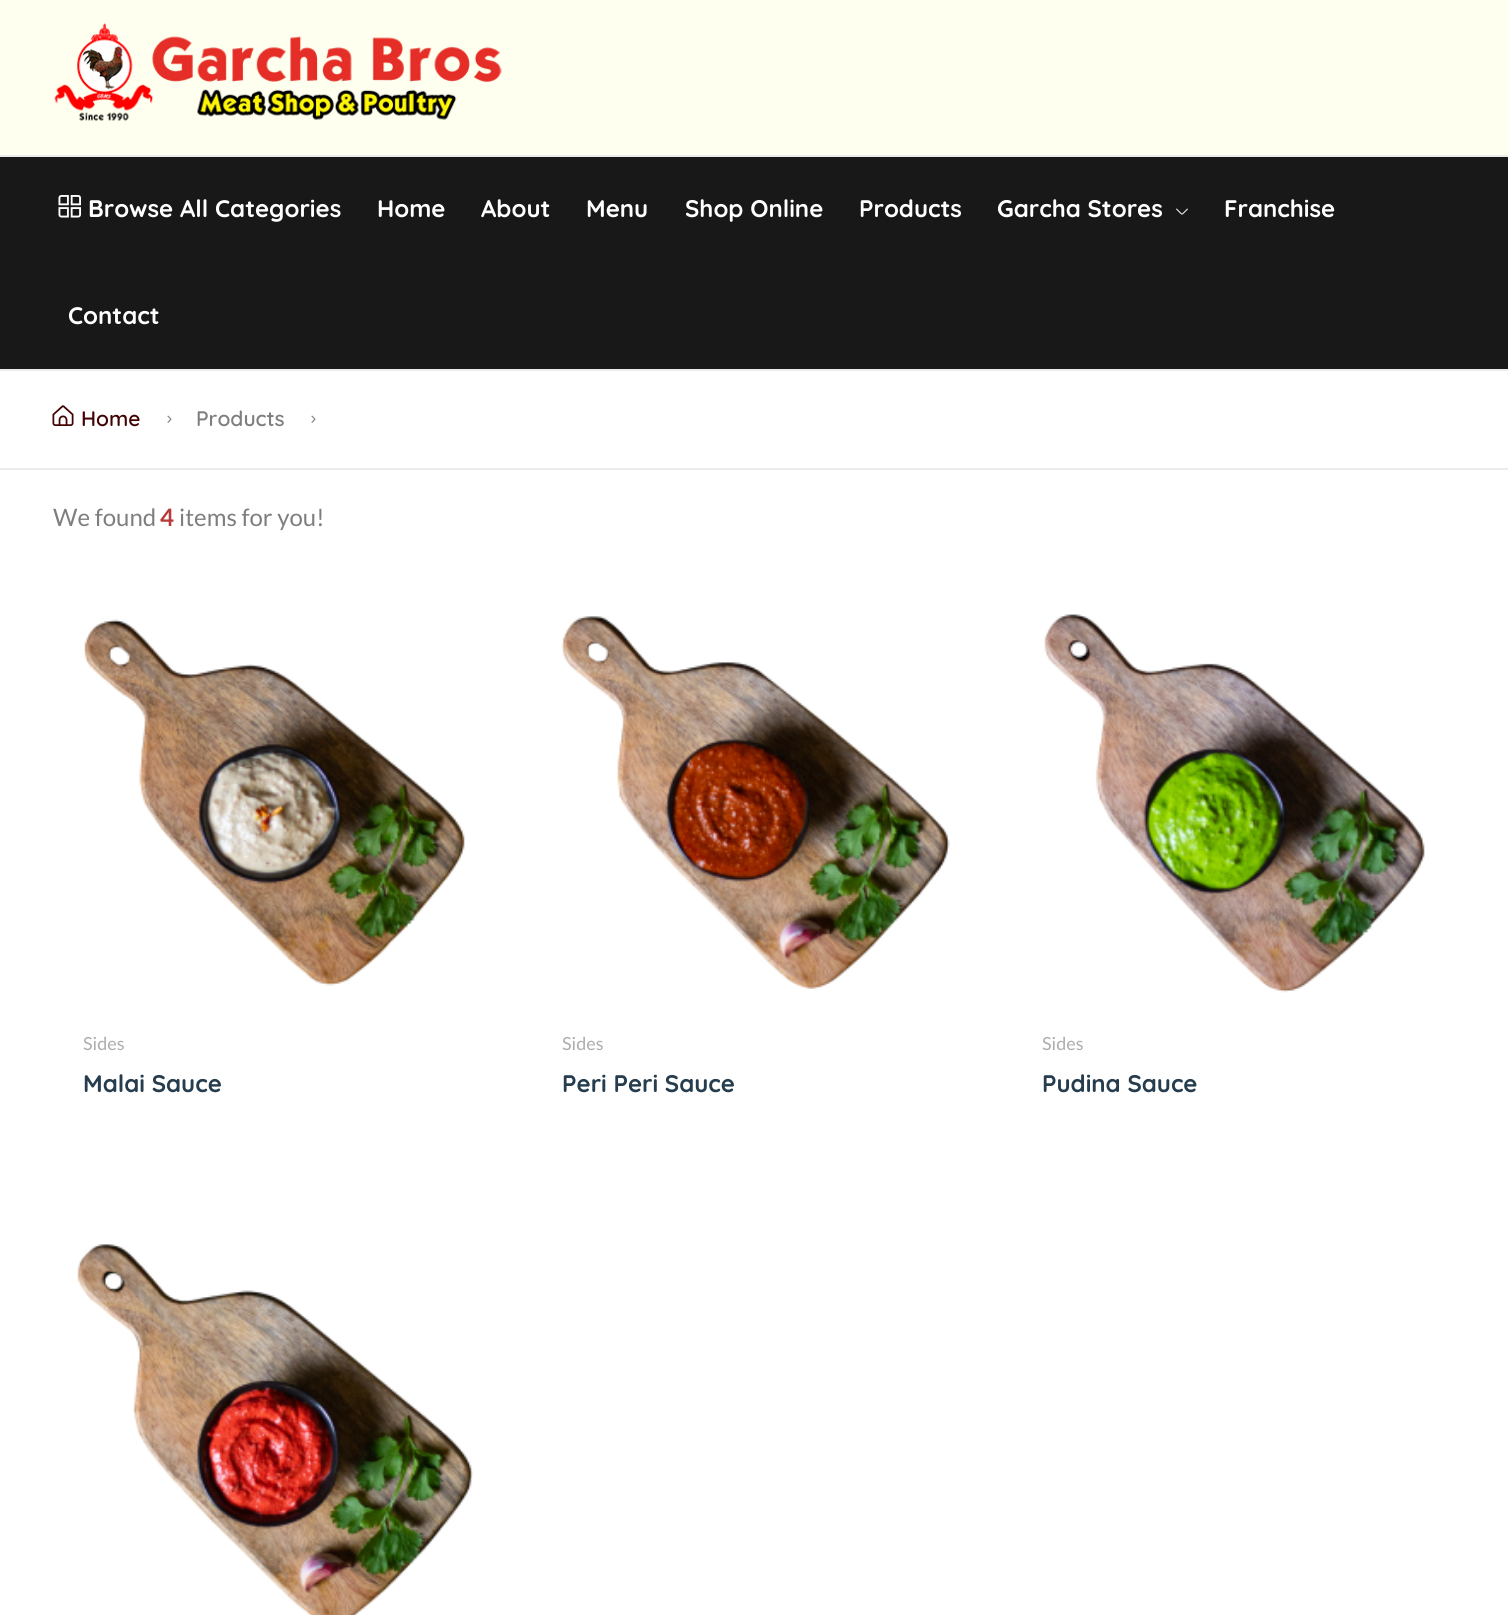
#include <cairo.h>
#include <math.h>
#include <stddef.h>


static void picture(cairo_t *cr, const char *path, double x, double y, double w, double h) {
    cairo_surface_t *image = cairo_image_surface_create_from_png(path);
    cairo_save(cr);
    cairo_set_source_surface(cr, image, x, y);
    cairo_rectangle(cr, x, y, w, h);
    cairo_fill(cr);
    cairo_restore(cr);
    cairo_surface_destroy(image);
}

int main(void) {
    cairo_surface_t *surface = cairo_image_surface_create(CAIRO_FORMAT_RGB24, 1508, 1615);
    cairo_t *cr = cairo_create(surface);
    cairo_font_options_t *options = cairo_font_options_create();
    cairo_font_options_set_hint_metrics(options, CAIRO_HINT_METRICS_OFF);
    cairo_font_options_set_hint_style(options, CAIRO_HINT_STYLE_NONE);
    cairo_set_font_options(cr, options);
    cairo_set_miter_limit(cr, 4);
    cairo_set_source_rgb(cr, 1, 1, 1);
    cairo_paint(cr);
    cairo_set_source_rgb(cr, 1, 1, 0.941);
    cairo_rectangle(cr, 0, 0, 1508, 155);
    cairo_fill(cr);
    picture(cr, "img1.png", 54, 23, 448, 98);
    cairo_set_source_rgb(cr, 0.094, 0.094, 0.094);
    cairo_rectangle(cr, 0, 157, 1508, 212);
    cairo_fill(cr);
    cairo_set_source_rgb(cr, 0.925, 0.925, 0.925);
    cairo_rectangle(cr, 0, 155, 1508, 2);
    cairo_fill(cr);
    cairo_rectangle(cr, 0, 369, 1508, 2);
    cairo_fill(cr);
    picture(cr, "img2.png", 58, 195, 23, 23);
    cairo_select_font_face(cr, "Quicksand", CAIRO_FONT_SLANT_NORMAL, CAIRO_FONT_WEIGHT_BOLD);
    cairo_set_font_size(cr, 24);
    cairo_set_source_rgb(cr, 1, 1, 1);
    cairo_move_to(cr, 88, 217);
    cairo_show_text(cr, "Browse All Categories");
    cairo_move_to(cr, 377, 217);
    cairo_show_text(cr, "Home");
    cairo_move_to(cr, 481, 217);
    cairo_show_text(cr, "About");
    cairo_move_to(cr, 586, 217);
    cairo_show_text(cr, "Menu");
    cairo_move_to(cr, 685, 217);
    cairo_show_text(cr, "Shop Online");
    cairo_move_to(cr, 859, 217);
    cairo_show_text(cr, "Products");
    cairo_move_to(cr, 997, 217);
    cairo_show_text(cr, "Garcha Stores");
    picture(cr, "img3.png", 1176, 208, 12, 7);
    cairo_move_to(cr, 1224, 217);
    cairo_show_text(cr, "Franchise");
    cairo_move_to(cr, 68, 324);
    cairo_show_text(cr, "Contact");
    cairo_set_source_rgb(cr, 0.925, 0.925, 0.925);
    cairo_rectangle(cr, 0, 468, 1508, 2);
    cairo_fill(cr);
    picture(cr, "img4.png", 52, 405, 22, 21);
    cairo_select_font_face(cr, "Quicksand SemiBold", CAIRO_FONT_SLANT_NORMAL, CAIRO_FONT_WEIGHT_NORMAL);
    cairo_set_font_size(cr, 21);
    cairo_set_source_rgb(cr, 0.259, 0.012, 0.012);
    cairo_move_to(cr, 81, 426);
    cairo_show_text(cr, "Home");
    picture(cr, "img5.png", 167, 415, 5, 8);
    cairo_set_source_rgb(cr, 0.494, 0.494, 0.494);
    cairo_move_to(cr, 196, 426);
    cairo_show_text(cr, "Products");
    picture(cr, "img5.png", 311, 415, 5, 8);
    cairo_select_font_face(cr, "Lato", CAIRO_FONT_SLANT_NORMAL, CAIRO_FONT_WEIGHT_NORMAL);
    cairo_set_font_size(cr, 24);
    cairo_move_to(cr, 53, 526);
    cairo_show_text(cr, "We found");
    cairo_select_font_face(cr, "Lato", CAIRO_FONT_SLANT_NORMAL, CAIRO_FONT_WEIGHT_BOLD);
    cairo_set_source_rgb(cr, 0.718, 0.231, 0.231);
    cairo_move_to(cr, 160, 526);
    cairo_show_text(cr, "4");
    cairo_select_font_face(cr, "Lato", CAIRO_FONT_SLANT_NORMAL, CAIRO_FONT_WEIGHT_NORMAL);
    cairo_set_source_rgb(cr, 0.494, 0.494, 0.494);
    cairo_move_to(cr, 179, 526);
    cairo_show_text(cr, "items for you!");
    picture(cr, "img6.png", 84, 619, 381, 367);
    cairo_set_font_size(cr, 18);
    cairo_set_source_rgb(cr, 0.678, 0.678, 0.678);
    cairo_move_to(cr, 83, 1050);
    cairo_show_text(cr, "Sides");
    cairo_select_font_face(cr, "Quicksand", CAIRO_FONT_SLANT_NORMAL, CAIRO_FONT_WEIGHT_BOLD);
    cairo_set_font_size(cr, 24);
    cairo_set_source_rgb(cr, 0.145, 0.239, 0.306);
    cairo_move_to(cr, 83, 1092);
    cairo_show_text(cr, "Malai Sauce");
    picture(cr, "img7.png", 561, 616, 389, 373);
    cairo_select_font_face(cr, "Lato", CAIRO_FONT_SLANT_NORMAL, CAIRO_FONT_WEIGHT_NORMAL);
    cairo_set_font_size(cr, 18);
    cairo_set_source_rgb(cr, 0.678, 0.678, 0.678);
    cairo_move_to(cr, 562, 1050);
    cairo_show_text(cr, "Sides");
    cairo_select_font_face(cr, "Quicksand", CAIRO_FONT_SLANT_NORMAL, CAIRO_FONT_WEIGHT_BOLD);
    cairo_set_font_size(cr, 24);
    cairo_set_source_rgb(cr, 0.145, 0.239, 0.306);
    cairo_move_to(cr, 562, 1092);
    cairo_show_text(cr, "Peri Peri Sauce");
    picture(cr, "img8.png", 1044, 614, 381, 379);
    cairo_select_font_face(cr, "Lato", CAIRO_FONT_SLANT_NORMAL, CAIRO_FONT_WEIGHT_NORMAL);
    cairo_set_font_size(cr, 18);
    cairo_set_source_rgb(cr, 0.678, 0.678, 0.678);
    cairo_move_to(cr, 1042, 1050);
    cairo_show_text(cr, "Sides");
    cairo_select_font_face(cr, "Quicksand", CAIRO_FONT_SLANT_NORMAL, CAIRO_FONT_WEIGHT_BOLD);
    cairo_set_font_size(cr, 24);
    cairo_set_source_rgb(cr, 0.145, 0.239, 0.306);
    cairo_move_to(cr, 1042, 1092);
    cairo_show_text(cr, "Pudina Sauce");
    picture(cr, "img9.png", 77, 1244, 396, 371);
    cairo_surface_write_to_png(surface, "page.png");
    cairo_font_options_destroy(options);
    cairo_destroy(cr);
    cairo_surface_destroy(surface);
    return 0;
}
